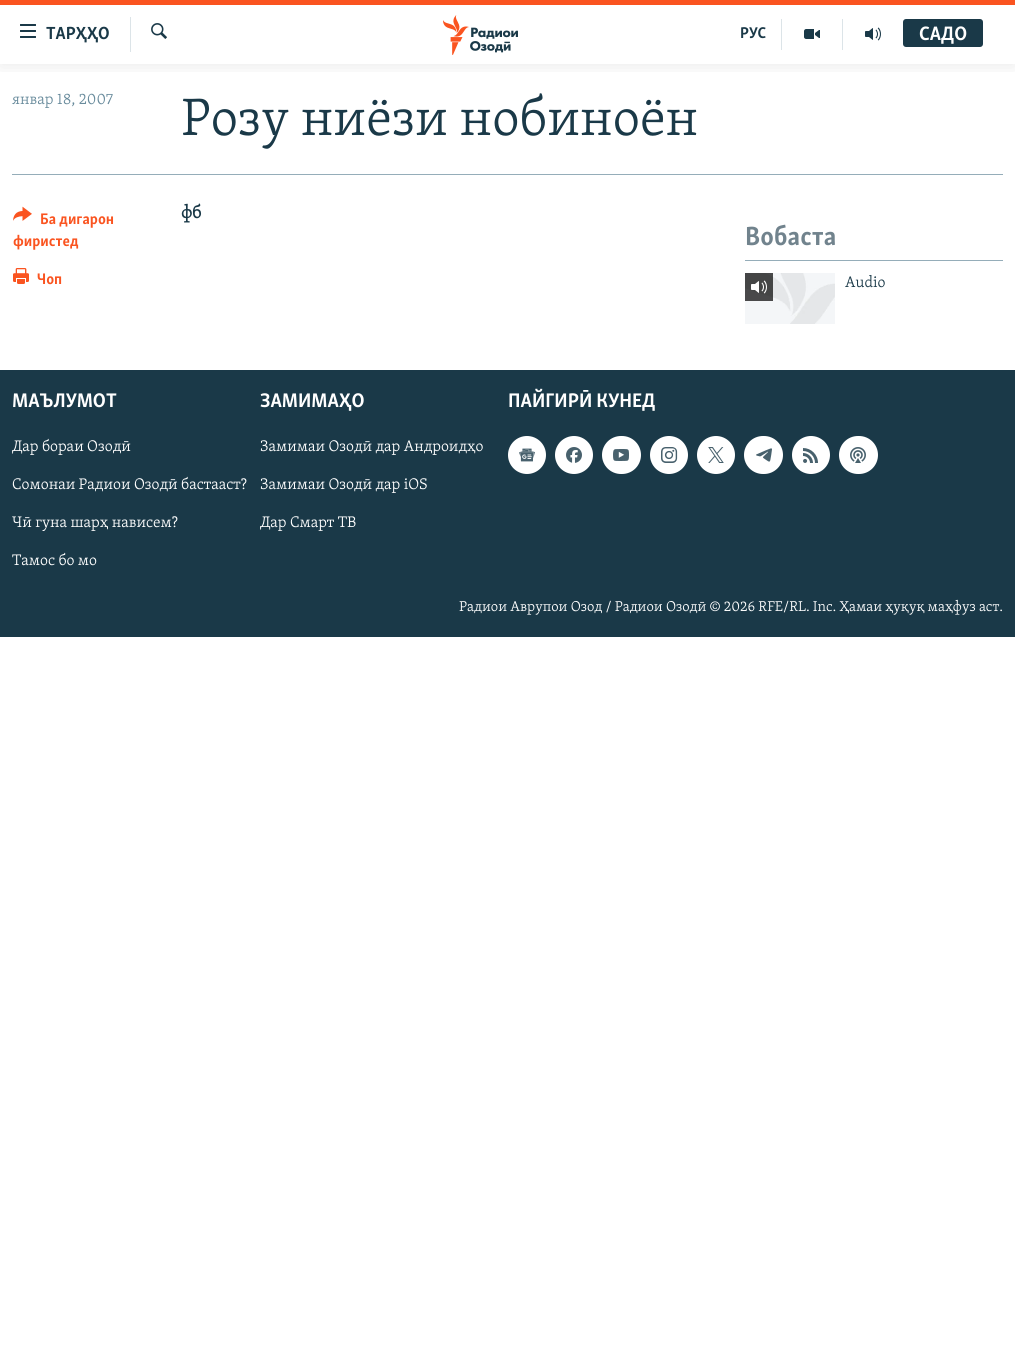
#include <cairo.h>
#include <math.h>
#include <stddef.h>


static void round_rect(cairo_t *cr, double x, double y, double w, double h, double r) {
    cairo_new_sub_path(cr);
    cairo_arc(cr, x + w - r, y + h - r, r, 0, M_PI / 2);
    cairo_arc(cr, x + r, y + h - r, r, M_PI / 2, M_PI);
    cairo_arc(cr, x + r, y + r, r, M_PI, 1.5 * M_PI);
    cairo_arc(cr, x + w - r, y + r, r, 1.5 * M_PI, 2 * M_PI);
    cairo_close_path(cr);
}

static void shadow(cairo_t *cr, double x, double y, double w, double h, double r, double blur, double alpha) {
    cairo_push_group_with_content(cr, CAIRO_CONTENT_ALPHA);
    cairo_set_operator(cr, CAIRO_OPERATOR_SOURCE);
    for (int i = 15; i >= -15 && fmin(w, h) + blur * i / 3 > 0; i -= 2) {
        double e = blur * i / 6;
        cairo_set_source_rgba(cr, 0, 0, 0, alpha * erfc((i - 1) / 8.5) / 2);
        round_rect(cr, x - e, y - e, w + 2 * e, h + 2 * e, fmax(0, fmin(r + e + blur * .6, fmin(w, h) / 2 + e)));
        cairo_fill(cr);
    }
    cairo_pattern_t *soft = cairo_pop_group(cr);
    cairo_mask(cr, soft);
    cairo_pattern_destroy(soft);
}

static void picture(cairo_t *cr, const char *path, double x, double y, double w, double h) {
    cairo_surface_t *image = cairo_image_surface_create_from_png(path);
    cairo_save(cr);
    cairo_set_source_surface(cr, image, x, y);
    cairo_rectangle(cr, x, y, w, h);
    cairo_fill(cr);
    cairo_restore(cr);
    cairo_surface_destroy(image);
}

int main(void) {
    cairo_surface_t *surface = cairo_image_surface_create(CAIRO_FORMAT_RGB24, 1015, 1348);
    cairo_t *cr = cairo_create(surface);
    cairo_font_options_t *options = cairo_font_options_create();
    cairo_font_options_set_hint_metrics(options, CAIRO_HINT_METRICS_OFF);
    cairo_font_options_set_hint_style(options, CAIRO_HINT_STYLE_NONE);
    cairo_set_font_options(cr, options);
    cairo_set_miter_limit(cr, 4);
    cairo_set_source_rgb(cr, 1, 1, 1);
    cairo_paint(cr);
    cairo_save(cr);
    cairo_rectangle(cr, 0, 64, 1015, 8);
    cairo_clip(cr);
    cairo_set_source_rgb(cr, 0, 0, 0);
    shadow(cr, 0, 0, 1015, 64, 0, 10, 0.1);
    cairo_restore(cr);
    cairo_set_source_rgb(cr, 0.98, 0.329, 0.125);
    cairo_rectangle(cr, 0, 0, 1015, 5);
    cairo_fill(cr);
    picture(cr, "img1.png", 20, 24, 16, 14);
    cairo_select_font_face(cr, "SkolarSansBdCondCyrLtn", CAIRO_FONT_SLANT_NORMAL, CAIRO_FONT_WEIGHT_BOLD);
    cairo_set_font_size(cr, 18);
    cairo_set_source_rgb(cr, 0.102, 0.224, 0.282);
    cairo_move_to(cr, 46, 39);
    cairo_show_text(cr, "ТАРҲҲО");
    cairo_set_source_rgb(cr, 0.863, 0.894, 0.91);
    cairo_rectangle(cr, 130, 17, 1, 35);
    cairo_fill(cr);
    picture(cr, "img2.png", 151, 23, 16, 16);
    picture(cr, "img3.png", 443, 15, 75, 40);
    cairo_rectangle(cr, 781, 19, 1, 31);
    cairo_fill(cr);
    cairo_set_font_size(cr, 16);
    cairo_set_source_rgb(cr, 0.102, 0.224, 0.282);
    cairo_move_to(cr, 740, 38);
    cairo_show_text(cr, "РУС");
    cairo_set_source_rgb(cr, 0.863, 0.894, 0.91);
    cairo_rectangle(cr, 842, 19, 1, 31);
    cairo_fill(cr);
    picture(cr, "img4.png", 804, 29, 16, 10);
    picture(cr, "img5.png", 865, 27, 16, 14);
    cairo_set_source_rgb(cr, 0.102, 0.224, 0.282);
    round_rect(cr, 903, 19, 80, 28, 3);
    cairo_fill(cr);
    cairo_set_font_size(cr, 20);
    cairo_set_source_rgb(cr, 1, 1, 1);
    cairo_move_to(cr, 919, 40);
    cairo_show_text(cr, "САДО");
    cairo_select_font_face(cr, "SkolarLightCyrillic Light", CAIRO_FONT_SLANT_NORMAL, CAIRO_FONT_WEIGHT_NORMAL);
    cairo_set_font_size(cr, 15.75);
    cairo_set_source_rgb(cr, 0.404, 0.541, 0.608);
    cairo_move_to(cr, 12, 104);
    cairo_show_text(cr, "январ 18, 2007");
    cairo_set_font_size(cr, 54);
    cairo_set_source_rgb(cr, 0.102, 0.224, 0.282);
    cairo_move_to(cr, 181, 135);
    cairo_show_text(cr, "Розу ниёзи нобиноён");
    cairo_set_source_rgb(cr, 0.584, 0.678, 0.725);
    cairo_rectangle(cr, 12, 174, 991, 1);
    cairo_fill(cr);
    picture(cr, "img6.png", 13, 206, 19, 15);
    cairo_select_font_face(cr, "SkolarSansBdCondCyrLtn", CAIRO_FONT_SLANT_NORMAL, CAIRO_FONT_WEIGHT_BOLD);
    cairo_set_font_size(cr, 15.75);
    cairo_set_source_rgb(cr, 0.98, 0.329, 0.125);
    cairo_move_to(cr, 40, 224);
    cairo_show_text(cr, "Ба дигарон");
    cairo_move_to(cr, 13, 246);
    cairo_show_text(cr, "фиристед");
    picture(cr, "img7.png", 13, 268, 16, 16);
    cairo_move_to(cr, 37, 284);
    cairo_show_text(cr, "Чоп");
    cairo_select_font_face(cr, "SkolarLightCyrillic", CAIRO_FONT_SLANT_NORMAL, CAIRO_FONT_WEIGHT_BOLD);
    cairo_set_font_size(cr, 18);
    cairo_set_source_rgb(cr, 0.102, 0.224, 0.282);
    cairo_move_to(cr, 181, 218);
    cairo_show_text(cr, "фб");
    cairo_set_source_rgb(cr, 0.584, 0.678, 0.725);
    cairo_rectangle(cr, 745, 260, 258, 1);
    cairo_fill(cr);
    cairo_select_font_face(cr, "SkolarSansBdCondCyrLtn", CAIRO_FONT_SLANT_NORMAL, CAIRO_FONT_WEIGHT_BOLD);
    cairo_set_font_size(cr, 27);
    cairo_set_source_rgb(cr, 0.443, 0.514, 0.553);
    cairo_move_to(cr, 745, 245);
    cairo_show_text(cr, "Вобаста");
    picture(cr, "img8.png", 745, 273, 90, 51);
    cairo_set_source_rgba(cr, 0, 0, 0, 0.7);
    cairo_rectangle(cr, 745, 273, 28, 28);
    cairo_fill(cr);
    picture(cr, "img9.png", 751, 280, 16, 14);
    cairo_select_font_face(cr, "SkolarLightCyrillic Light", CAIRO_FONT_SLANT_NORMAL, CAIRO_FONT_WEIGHT_NORMAL);
    cairo_set_font_size(cr, 15.75);
    cairo_set_source_rgb(cr, 0.102, 0.224, 0.282);
    cairo_move_to(cr, 845, 287);
    cairo_show_text(cr, "Audio");
    cairo_rectangle(cr, 0, 370, 1015, 267);
    cairo_fill(cr);
    cairo_select_font_face(cr, "SkolarSansBdCondCyrLtn", CAIRO_FONT_SLANT_NORMAL, CAIRO_FONT_WEIGHT_BOLD);
    cairo_set_font_size(cr, 20.25);
    cairo_set_source_rgb(cr, 1, 1, 1);
    cairo_move_to(cr, 12, 407);
    cairo_show_text(cr, "МАЪЛУМОТ");
    cairo_select_font_face(cr, "SkolarLightCyrillic Light", CAIRO_FONT_SLANT_NORMAL, CAIRO_FONT_WEIGHT_NORMAL);
    cairo_set_font_size(cr, 15.75);
    cairo_move_to(cr, 12, 451);
    cairo_show_text(cr, "Дар бораи Озодӣ");
    cairo_move_to(cr, 12, 489);
    cairo_show_text(cr, "Сомонаи Радиои Озодӣ бастааст?");
    cairo_move_to(cr, 12, 527);
    cairo_show_text(cr, "Чӣ гуна шарҳ нависем?");
    cairo_move_to(cr, 12, 565);
    cairo_show_text(cr, "Тамос бо мо");
    cairo_select_font_face(cr, "SkolarSansBdCondCyrLtn", CAIRO_FONT_SLANT_NORMAL, CAIRO_FONT_WEIGHT_BOLD);
    cairo_set_font_size(cr, 20.25);
    cairo_move_to(cr, 260, 407);
    cairo_show_text(cr, "ЗАМИМАҲО");
    cairo_select_font_face(cr, "SkolarLightCyrillic Light", CAIRO_FONT_SLANT_NORMAL, CAIRO_FONT_WEIGHT_NORMAL);
    cairo_set_font_size(cr, 15.75);
    cairo_move_to(cr, 260, 451);
    cairo_show_text(cr, "Замимаи Озодӣ дар Андроидҳо");
    cairo_move_to(cr, 260, 489);
    cairo_show_text(cr, "Замимаи Озодӣ дар iOS");
    cairo_move_to(cr, 260, 527);
    cairo_show_text(cr, "Дар Смарт ТВ");
    cairo_select_font_face(cr, "SkolarSansBdCondCyrLtn", CAIRO_FONT_SLANT_NORMAL, CAIRO_FONT_WEIGHT_BOLD);
    cairo_set_font_size(cr, 20.25);
    cairo_move_to(cr, 508, 407);
    cairo_show_text(cr, "ПАЙГИРӢ КУНЕД");
    cairo_new_path(cr);
    cairo_arc(cr, 527, 455, 19, 0, 2 * M_PI);
    cairo_fill(cr);
    picture(cr, "img10.png", 519, 448, 16, 14);
    cairo_arc(cr, 574, 455, 19, 0, 2 * M_PI);
    cairo_fill(cr);
    picture(cr, "img11.png", 566, 447, 16, 16);
    round_rect(cr, 602, 436, 39, 38, 19);
    cairo_fill(cr);
    picture(cr, "img12.png", 613, 449, 16, 12);
    cairo_arc(cr, 669, 455, 19, 0, 2 * M_PI);
    cairo_fill(cr);
    picture(cr, "img13.png", 661, 447, 17, 16);
    cairo_arc(cr, 716, 455, 19, 0, 2 * M_PI);
    cairo_fill(cr);
    picture(cr, "img14.png", 708, 447, 16, 16);
    round_rect(cr, 744, 436, 39, 38, 19);
    cairo_fill(cr);
    picture(cr, "img15.png", 756, 448, 16, 14);
    cairo_arc(cr, 811, 455, 19, 0, 2 * M_PI);
    cairo_fill(cr);
    picture(cr, "img16.png", 803, 448, 15, 15);
    round_rect(cr, 839, 436, 39, 38, 19);
    cairo_fill(cr);
    picture(cr, "img17.png", 850, 447, 16, 16);
    cairo_select_font_face(cr, "SkolarLightCyrillic Light", CAIRO_FONT_SLANT_NORMAL, CAIRO_FONT_WEIGHT_NORMAL);
    cairo_set_font_size(cr, 14.6);
    cairo_move_to(cr, 459, 611);
    cairo_show_text(cr, "Радиои Аврупои Озод / Радиои Озодӣ © 2026 RFE/RL. Inc. Ҳамаи ҳуқуқ маҳфуз аст.");
    cairo_surface_write_to_png(surface, "page.png");
    cairo_font_options_destroy(options);
    cairo_destroy(cr);
    cairo_surface_destroy(surface);
    return 0;
}
